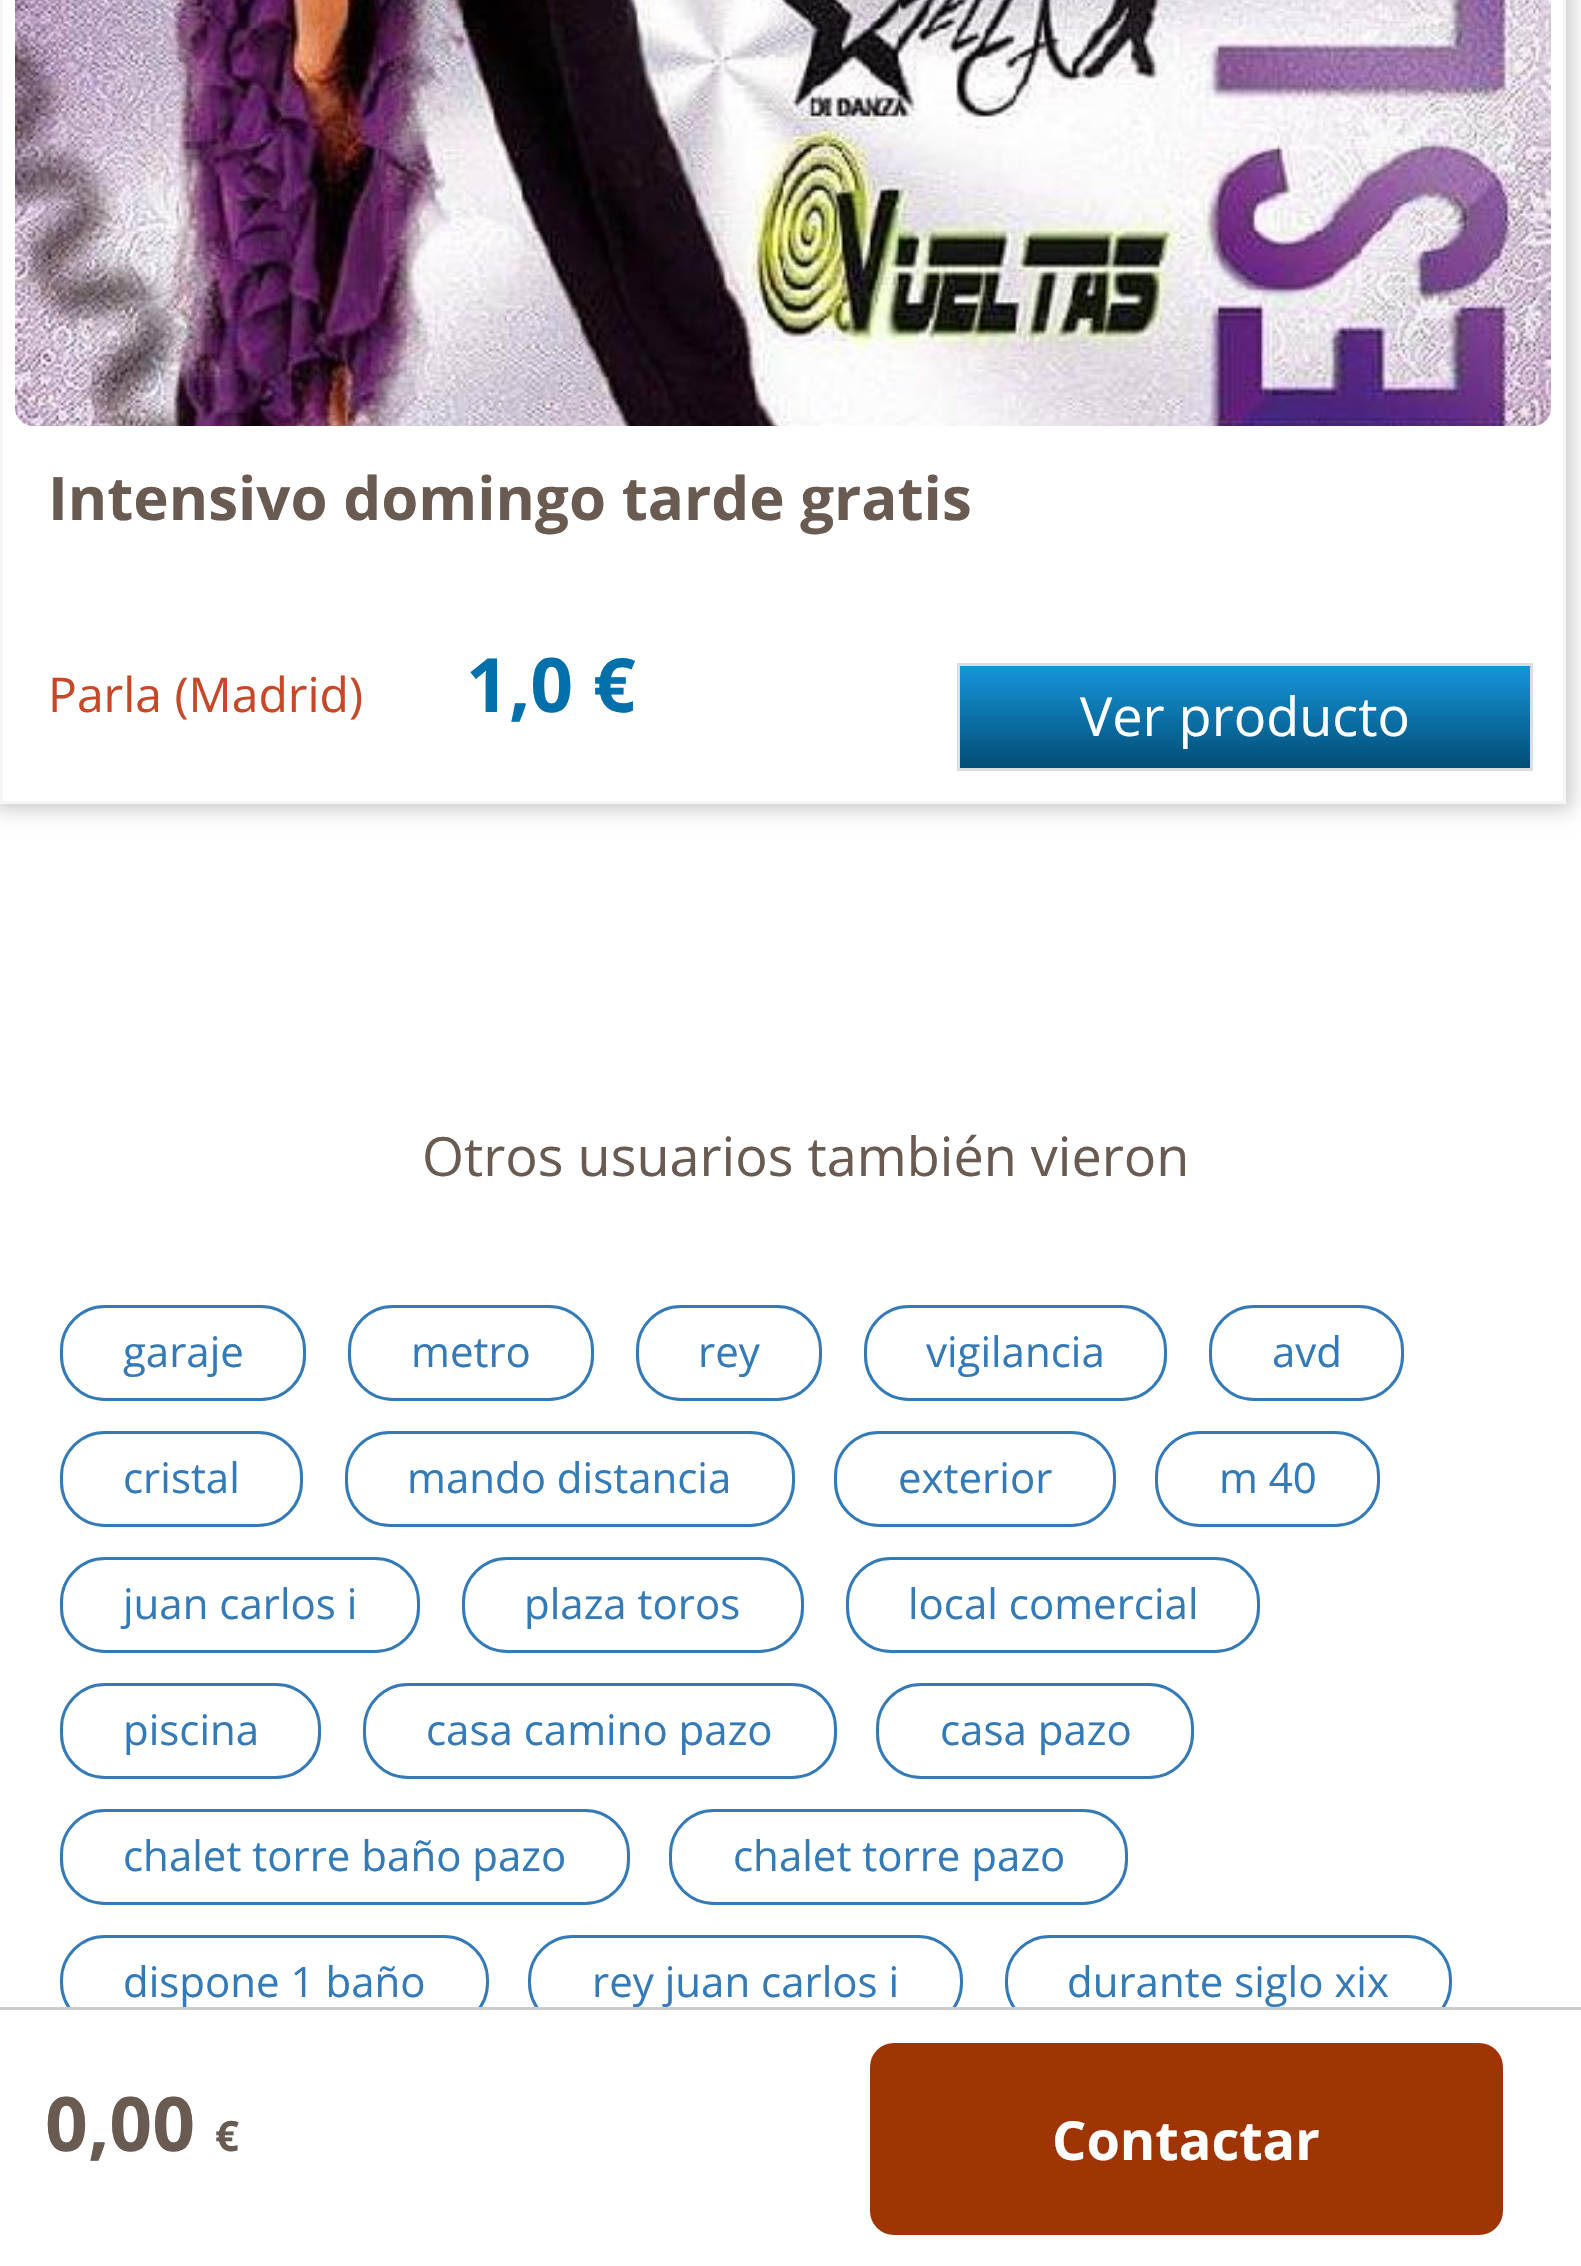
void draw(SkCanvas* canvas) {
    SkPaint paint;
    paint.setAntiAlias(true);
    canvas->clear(0xFFFFFFFF);
    canvas->save();
    canvas->clipPath(SkPathBuilder(SkPathFillType::kEvenOdd).moveTo(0, 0).lineTo(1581, 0).lineTo(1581, 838).lineTo(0, 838).close().moveTo(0, -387).lineTo(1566, -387).lineTo(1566, 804).lineTo(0, 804).close().detach(), true);
    paint.setColor(0xFFCCCCCC);
    paint.setMaskFilter(SkMaskFilter::MakeBlur(kNormal_SkBlurStyle, 9));
    canvas->drawRect(SkRect::MakeXYWH(-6, -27, 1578, 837), paint);
    paint.setMaskFilter(nullptr);
    canvas->restore();
    paint.setStyle(SkPaint::kStroke_Style);
    paint.setStrokeWidth(3);
    paint.setColor(0xFFF5F5F5);
    canvas->drawRect(SkRect::MakeXYWH(1.5f, -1.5f, 1563, 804), paint);
    canvas->drawImageRect(SkImages::DeferredFromEncodedData(SkData::MakeFromFileName("img1.png")), SkRect::MakeXYWH(15, 0, 1536, 426), SkSamplingOptions());
    SkFont font1(fontMgr->matchFamilyStyle("Open Sans", SkFontStyle::Bold()), 60);
    font1.setSubpixel(true);
    paint.setStyle(SkPaint::kFill_Style);
    paint.setColor(0xFF695B52);
    canvas->drawString("Intensivo domingo tarde gratis", 48, 520, font1, paint);
    SkFont font2(fontMgr->matchFamilyStyle("Open Sans", SkFontStyle::Normal()), 48);
    font2.setSubpixel(true);
    paint.setColor(0xFFC64826);
    canvas->drawString("Parla (Madrid)", 48, 712, font2, paint);
    SkFont font3(fontMgr->matchFamilyStyle("Open Sans", SkFontStyle::Bold()), 75);
    font3.setSubpixel(true);
    paint.setColor(0xFF0270AA);
    canvas->drawString("1,0 €", 466, 712, font3, paint);
    {
        const SkColor colors[] = {0xFF1696DB, 0xFF024D75};
        const float stops[] = {0, 1};
        const SkPoint ends[] = {{1245, 666}, {1245, 768}};
        paint.setShader(SkGradientShader::MakeLinear(ends, colors, stops, 2, SkTileMode::kClamp));
        paint.setAlpha(255);
    }
    canvas->drawRect(SkRect::MakeXYWH(960, 666, 570, 102), paint);
    paint.setStyle(SkPaint::kStroke_Style);
    paint.setShader(nullptr);
    paint.setColor(0xFFDDDDDD);
    canvas->drawRect(SkRect::MakeXYWH(958.5f, 664.5f, 573, 105), paint);
    SkFont font4(fontMgr->matchFamilyStyle("Open Sans", SkFontStyle::Normal()), 54);
    font4.setSubpixel(true);
    paint.setStyle(SkPaint::kFill_Style);
    paint.setColor(0xFFFFFFFF);
    canvas->drawString("Ver producto", 1080, 736, font4, paint);
    paint.setColor(0xFF695B52);
    canvas->drawString("Otros usuarios también vieron", 422, 1176, font4, paint);
    paint.setStyle(SkPaint::kStroke_Style);
    paint.setColor(0xFF337AB7);
    canvas->drawRoundRect(SkRect::MakeXYWH(61.5f, 1306.5f, 243, 93), 43.5f, 43.5f, paint);
    SkFont font5(fontMgr->matchFamilyStyle("Open Sans", SkFontStyle::Normal()), 42);
    font5.setSubpixel(true);
    paint.setStyle(SkPaint::kFill_Style);
    canvas->drawString("garaje", 123, 1367, font5, paint);
    paint.setStyle(SkPaint::kStroke_Style);
    canvas->drawRoundRect(SkRect::MakeXYWH(349.5f, 1306.5f, 243, 93), 43.5f, 43.5f, paint);
    paint.setStyle(SkPaint::kFill_Style);
    canvas->drawString("metro", 411, 1367, font5, paint);
    paint.setStyle(SkPaint::kStroke_Style);
    canvas->drawRoundRect(SkRect::MakeXYWH(637.5f, 1306.5f, 183, 93), 43.5f, 43.5f, paint);
    paint.setStyle(SkPaint::kFill_Style);
    canvas->drawString("rey", 698, 1367, font5, paint);
    paint.setStyle(SkPaint::kStroke_Style);
    canvas->drawRoundRect(SkRect::MakeXYWH(865.5f, 1306.5f, 300, 93), 43.5f, 43.5f, paint);
    paint.setStyle(SkPaint::kFill_Style);
    canvas->drawString("vigilancia", 926, 1367, font5, paint);
    paint.setStyle(SkPaint::kStroke_Style);
    canvas->drawRoundRect(SkRect::MakeXYWH(1210.5f, 1306.5f, 192, 93), 43.5f, 43.5f, paint);
    paint.setStyle(SkPaint::kFill_Style);
    canvas->drawString("avd", 1272, 1367, font5, paint);
    paint.setStyle(SkPaint::kStroke_Style);
    canvas->drawRoundRect(SkRect::MakeXYWH(61.5f, 1432.5f, 240, 93), 43.5f, 43.5f, paint);
    paint.setStyle(SkPaint::kFill_Style);
    canvas->drawString("cristal", 123, 1493, font5, paint);
    paint.setStyle(SkPaint::kStroke_Style);
    canvas->drawRoundRect(SkRect::MakeXYWH(346.5f, 1432.5f, 447, 93), 43.5f, 43.5f, paint);
    paint.setStyle(SkPaint::kFill_Style);
    canvas->drawString("mando distancia", 407, 1493, font5, paint);
    paint.setStyle(SkPaint::kStroke_Style);
    canvas->drawRoundRect(SkRect::MakeXYWH(835.5f, 1432.5f, 279, 93), 43.5f, 43.5f, paint);
    paint.setStyle(SkPaint::kFill_Style);
    canvas->drawString("exterior", 898, 1493, font5, paint);
    paint.setStyle(SkPaint::kStroke_Style);
    canvas->drawRoundRect(SkRect::MakeXYWH(1156.5f, 1432.5f, 222, 93), 43.5f, 43.5f, paint);
    paint.setStyle(SkPaint::kFill_Style);
    canvas->drawString("m 40", 1219, 1493, font5, paint);
    paint.setStyle(SkPaint::kStroke_Style);
    canvas->drawRoundRect(SkRect::MakeXYWH(61.5f, 1558.5f, 357, 93), 43.5f, 43.5f, paint);
    paint.setStyle(SkPaint::kFill_Style);
    canvas->drawString("juan carlos i", 123, 1619, font5, paint);
    paint.setStyle(SkPaint::kStroke_Style);
    canvas->drawRoundRect(SkRect::MakeXYWH(463.5f, 1558.5f, 339, 93), 43.5f, 43.5f, paint);
    paint.setStyle(SkPaint::kFill_Style);
    canvas->drawString("plaza toros", 524, 1619, font5, paint);
    paint.setStyle(SkPaint::kStroke_Style);
    canvas->drawRoundRect(SkRect::MakeXYWH(847.5f, 1558.5f, 411, 93), 43.5f, 43.5f, paint);
    paint.setStyle(SkPaint::kFill_Style);
    canvas->drawString("local comercial", 908, 1619, font5, paint);
    paint.setStyle(SkPaint::kStroke_Style);
    canvas->drawRoundRect(SkRect::MakeXYWH(61.5f, 1684.5f, 258, 93), 43.5f, 43.5f, paint);
    paint.setStyle(SkPaint::kFill_Style);
    canvas->drawString("piscina", 123, 1745, font5, paint);
    paint.setStyle(SkPaint::kStroke_Style);
    canvas->drawRoundRect(SkRect::MakeXYWH(364.5f, 1684.5f, 471, 93), 43.5f, 43.5f, paint);
    paint.setStyle(SkPaint::kFill_Style);
    canvas->drawString("casa camino pazo", 426, 1745, font5, paint);
    paint.setStyle(SkPaint::kStroke_Style);
    canvas->drawRoundRect(SkRect::MakeXYWH(877.5f, 1684.5f, 315, 93), 43.5f, 43.5f, paint);
    paint.setStyle(SkPaint::kFill_Style);
    canvas->drawString("casa pazo", 940, 1745, font5, paint);
    paint.setStyle(SkPaint::kStroke_Style);
    canvas->drawRoundRect(SkRect::MakeXYWH(61.5f, 1810.5f, 567, 93), 43.5f, 43.5f, paint);
    paint.setStyle(SkPaint::kFill_Style);
    canvas->drawString("chalet torre baño pazo", 123, 1871, font5, paint);
    paint.setStyle(SkPaint::kStroke_Style);
    canvas->drawRoundRect(SkRect::MakeXYWH(670.5f, 1810.5f, 456, 93), 43.5f, 43.5f, paint);
    paint.setStyle(SkPaint::kFill_Style);
    canvas->drawString("chalet torre pazo", 733, 1871, font5, paint);
    paint.setStyle(SkPaint::kStroke_Style);
    canvas->drawRoundRect(SkRect::MakeXYWH(61.5f, 1936.5f, 426, 90), 43.5f, 43.5f, paint);
    paint.setStyle(SkPaint::kFill_Style);
    canvas->drawString("dispone 1 baño", 123, 1997, font5, paint);
    paint.setStyle(SkPaint::kStroke_Style);
    canvas->drawRoundRect(SkRect::MakeXYWH(529.5f, 1936.5f, 432, 90), 43.5f, 43.5f, paint);
    paint.setStyle(SkPaint::kFill_Style);
    canvas->drawString("rey juan carlos i", 592, 1997, font5, paint);
    paint.setStyle(SkPaint::kStroke_Style);
    canvas->drawRoundRect(SkRect::MakeXYWH(1006.5f, 1936.5f, 444, 90), 43.5f, 43.5f, paint);
    paint.setStyle(SkPaint::kFill_Style);
    canvas->drawString("durante siglo xix", 1067, 1997, font5, paint);
    paint.setColor(0xFFFFFFFF);
    canvas->drawRect(SkRect::MakeXYWH(69, 2010, 1374, 18), paint);
    paint.setColor(0xFFCCCCCC);
    canvas->drawRect(SkRect::MakeXYWH(0, 2007, 1581, 3), paint);
    paint.setColor(0xFF695B52);
    canvas->drawString("0,00", 45, 2151, font3, paint);
    SkFont font6(fontMgr->matchFamilyStyle("Open Sans", SkFontStyle::Bold()), 42);
    font6.setSubpixel(true);
    canvas->drawString("€", 215, 2151, font6, paint);
    paint.setColor(0xFF9F3404);
    canvas->drawRoundRect(SkRect::MakeXYWH(870, 2043, 633, 192), 24, 24, paint);
    SkFont font7(fontMgr->matchFamilyStyle("Open Sans", SkFontStyle::Bold()), 54);
    font7.setSubpixel(true);
    paint.setColor(0xFFFFFFFF);
    canvas->drawString("Contactar", 1052, 2160, font7, paint);
}
